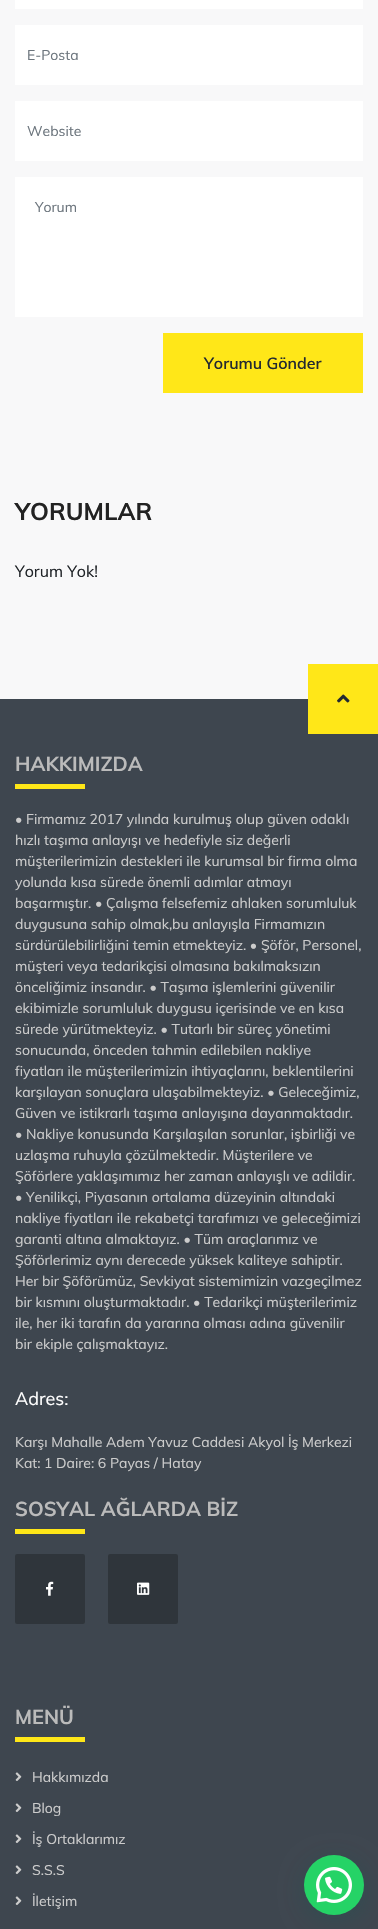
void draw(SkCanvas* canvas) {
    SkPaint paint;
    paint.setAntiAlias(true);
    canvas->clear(0xFFF8F8F9);
    paint.setColor(0xFFFFFFFF);
    canvas->drawRect(SkRect::MakeXYWH(15, 0, 348, 9), paint);
    canvas->drawRect(SkRect::MakeXYWH(15, 25, 348, 60), paint);
    SkFont font1(fontMgr->matchFamilyStyle("Muli", SkFontStyle::Normal()), 14);
    font1.setSubpixel(true);
    paint.setColor(0xFF6C757D);
    canvas->drawString("E-Posta", 27, 60, font1, paint);
    paint.setColor(0xFFFFFFFF);
    canvas->drawRect(SkRect::MakeXYWH(15, 101, 348, 60), paint);
    paint.setColor(0xFF6C757D);
    canvas->drawString("Website", 27, 136, font1, paint);
    paint.setColor(0xFFFFFFFF);
    canvas->drawRect(SkRect::MakeXYWH(15, 177, 348, 140), paint);
    paint.setColor(0xFF6C757D);
    canvas->drawString("Yorum", 35, 212, font1, paint);
    paint.setColor(0xFFFFE718);
    canvas->drawRect(SkRect::MakeXYWH(163, 333, 200, 60), paint);
    SkFont font2(fontMgr->matchFamilyStyle("Muli", SkFontStyle(600, SkFontStyle::kNormal_Width, SkFontStyle::kUpright_Slant)), 16);
    font2.setSubpixel(true);
    paint.setColor(0xFF222931);
    canvas->drawString("Yorumu Gönder", 204, 369, font2, paint);
    SkFont font3(fontMgr->matchFamilyStyle("Muli", SkFontStyle::Bold()), 24);
    font3.setSubpixel(true);
    paint.setColor(0xFF222222);
    canvas->drawString("YORUMLAR", 15, 520, font3, paint);
    SkFont font4(fontMgr->matchFamilyStyle("Muli", SkFontStyle::Normal()), 16);
    font4.setSubpixel(true);
    paint.setColor(0xFF212529);
    canvas->drawString("Yorum Yok!", 15, 577, font4, paint);
    paint.setColor(0xFF3E464F);
    canvas->drawRect(SkRect::MakeXYWH(0, 699, 378, 1230), paint);
    paint.setColor(0xFFFFE718);
    canvas->drawRect(SkRect::MakeXYWH(308, 664, 70, 70), paint);
    canvas->drawImageRect(SkImages::DeferredFromEncodedData(SkData::MakeFromFileName("img1.png")), SkRect::MakeXYWH(337, 694, 13, 9), SkSamplingOptions());
    SkFont font5(fontMgr->matchFamilyStyle("Muli", SkFontStyle::Bold()), 20);
    font5.setSubpixel(true);
    paint.setColor(0xFFBBBBBB);
    canvas->drawString("HAKKIMIZDA", 15, 771, font5, paint);
    paint.setColor(0xFFFFE718);
    canvas->drawRect(SkRect::MakeXYWH(15, 784, 70, 5), paint);
    paint.setColor(0xFFCCCCCC);
    canvas->drawString("• Firmamız 2017 yılında kurulmuş olup güven odaklı", 15, 824, font1, paint);
    canvas->drawString("hızlı taşıma anlayışı ve hedefiyle siz değerli", 15, 845, font1, paint);
    canvas->drawString("müşterilerimizin destekleri ile kurumsal bir firma olma", 15, 866, font1, paint);
    canvas->drawString("yolunda kısa sürede önemli adımlar atmayı", 15, 887, font1, paint);
    canvas->drawString("başarmıştır. • Çalışma felsefemiz ahlaken sorumluluk", 15, 908, font1, paint);
    canvas->drawString("duygusuna sahip olmak,bu anlayışla Firmamızın", 15, 929, font1, paint);
    canvas->drawString("sürdürülebilirliğini temin etmekteyiz. • Şöför, Personel,", 15, 950, font1, paint);
    canvas->drawString("müşteri veya tedarikçisi olmasına bakılmaksızın", 15, 971, font1, paint);
    canvas->drawString("önceliğimiz insandır. • Taşıma işlemlerini güvenilir", 15, 992, font1, paint);
    canvas->drawString("ekibimizle sorumluluk duygusu içerisinde ve en kısa", 15, 1013, font1, paint);
    canvas->drawString("sürede yürütmekteyiz. • Tutarlı bir süreç yönetimi", 15, 1034, font1, paint);
    canvas->drawString("sonucunda, önceden tahmin edilebilen nakliye", 15, 1055, font1, paint);
    canvas->drawString("fiyatları ile müşterilerimizin ihtiyaçlarını, beklentilerini", 15, 1076, font1, paint);
    canvas->drawString("karşılayan sonuçlara ulaşabilmekteyiz. • Geleceğimiz,", 15, 1097, font1, paint);
    canvas->drawString("Güven ve istikrarlı taşıma anlayışına dayanmaktadır.", 15, 1118, font1, paint);
    canvas->drawString("• Nakliye konusunda Karşılaşılan sorunlar, işbirliği ve", 15, 1139, font1, paint);
    canvas->drawString("uzlaşma ruhuyla çözülmektedir. Müşterilere ve", 15, 1160, font1, paint);
    canvas->drawString("Şöförlere yaklaşımımız her zaman anlayışlı ve adildir.", 15, 1181, font1, paint);
    canvas->drawString("• Yenilikçi, Piyasanın ortalama düzeyinin altındaki", 15, 1202, font1, paint);
    canvas->drawString("nakliye fiyatları ile rekabetçi tarafımızı ve geleceğimizi", 15, 1223, font1, paint);
    canvas->drawString("garanti altına almaktayız. • Tüm araçlarımız ve", 15, 1244, font1, paint);
    canvas->drawString("Şöförlerimiz aynı derecede yüksek kaliteye sahiptir.", 15, 1265, font1, paint);
    canvas->drawString("Her bir Şöförümüz, Sevkiyat sistemimizin vazgeçilmez", 15, 1286, font1, paint);
    canvas->drawString("bir kısmını oluşturmaktadır. • Tedarikçi müşterilerimiz", 15, 1307, font1, paint);
    canvas->drawString("ile, her iki tarafın da yararına olması adına güvenilir", 15, 1328, font1, paint);
    canvas->drawString("bir ekiple çalışmaktayız.", 15, 1349, font1, paint);
    SkFont font6(fontMgr->matchFamilyStyle("Muli", SkFontStyle::Normal()), 18);
    font6.setSubpixel(true);
    paint.setColor(0xFFFFFFFF);
    canvas->drawString("Adres:", 15, 1405, font6, paint);
    paint.setColor(0xFFCCCCCC);
    canvas->drawString("Karşı Mahalle Adem Yavuz Caddesi Akyol İş Merkezi", 15, 1447, font1, paint);
    canvas->drawString("Kat: 1 Daire: 6 Payas / Hatay", 15, 1468, font1, paint);
    paint.setColor(0xFFBBBBBB);
    canvas->drawString("SOSYAL AĞLARDA BİZ", 15, 1516, font5, paint);
    paint.setColor(0xFFFFE718);
    canvas->drawRect(SkRect::MakeXYWH(15, 1529, 70, 5), paint);
    paint.setColor(0xFF2F353B);
    canvas->drawRoundRect(SkRect::MakeXYWH(15, 1554, 70, 70), 2, 2, paint);
    canvas->drawImageRect(SkImages::DeferredFromEncodedData(SkData::MakeFromFileName("img2.png")), SkRect::MakeXYWH(46, 1581, 8, 15), SkSamplingOptions());
    canvas->drawRoundRect(SkRect::MakeXYWH(108, 1554, 70, 70), 2, 2, paint);
    canvas->drawImageRect(SkImages::DeferredFromEncodedData(SkData::MakeFromFileName("img3.png")), SkRect::MakeXYWH(137, 1582, 13, 13), SkSamplingOptions());
    paint.setColor(0xFFBBBBBB);
    canvas->drawString("MENÜ", 15, 1724, font5, paint);
    paint.setColor(0xFFFFE718);
    canvas->drawRect(SkRect::MakeXYWH(15, 1737, 70, 5), paint);
    canvas->drawImageRect(SkImages::DeferredFromEncodedData(SkData::MakeFromFileName("img4.png")), SkRect::MakeXYWH(15, 1772, 7, 9), SkSamplingOptions());
    paint.setColor(0xFFCCCCCC);
    canvas->drawString("Hakkımızda", 32, 1782, font1, paint);
    canvas->drawImageRect(SkImages::DeferredFromEncodedData(SkData::MakeFromFileName("img4.png")), SkRect::MakeXYWH(15, 1803, 7, 9), SkSamplingOptions());
    canvas->drawString("Blog", 32, 1813, font1, paint);
    canvas->drawImageRect(SkImages::DeferredFromEncodedData(SkData::MakeFromFileName("img4.png")), SkRect::MakeXYWH(15, 1834, 7, 9), SkSamplingOptions());
    canvas->drawString("İş Ortaklarımız", 32, 1844, font1, paint);
    canvas->drawImageRect(SkImages::DeferredFromEncodedData(SkData::MakeFromFileName("img4.png")), SkRect::MakeXYWH(15, 1865, 7, 9), SkSamplingOptions());
    canvas->drawString("S.S.S", 32, 1875, font1, paint);
    canvas->drawImageRect(SkImages::DeferredFromEncodedData(SkData::MakeFromFileName("img4.png")), SkRect::MakeXYWH(15, 1896, 7, 9), SkSamplingOptions());
    canvas->drawString("İletişim", 32, 1906, font1, paint);
    paint.setColor(0x3D075E54);
    paint.setMaskFilter(SkMaskFilter::MakeBlur(kNormal_SkBlurStyle, 12));
    canvas->drawRoundRect(SkRect::MakeXYWH(305, 1861, 60, 60), 30, 30, paint);
    paint.setMaskFilter(nullptr);
    paint.setColor(0xFF25D366);
    canvas->drawCircle(334, 1885, 30, paint);
    canvas->drawImageRect(SkImages::DeferredFromEncodedData(SkData::MakeFromFileName("img5.png")), SkRect::MakeXYWH(316, 1867, 36, 36), SkSamplingOptions());
}
